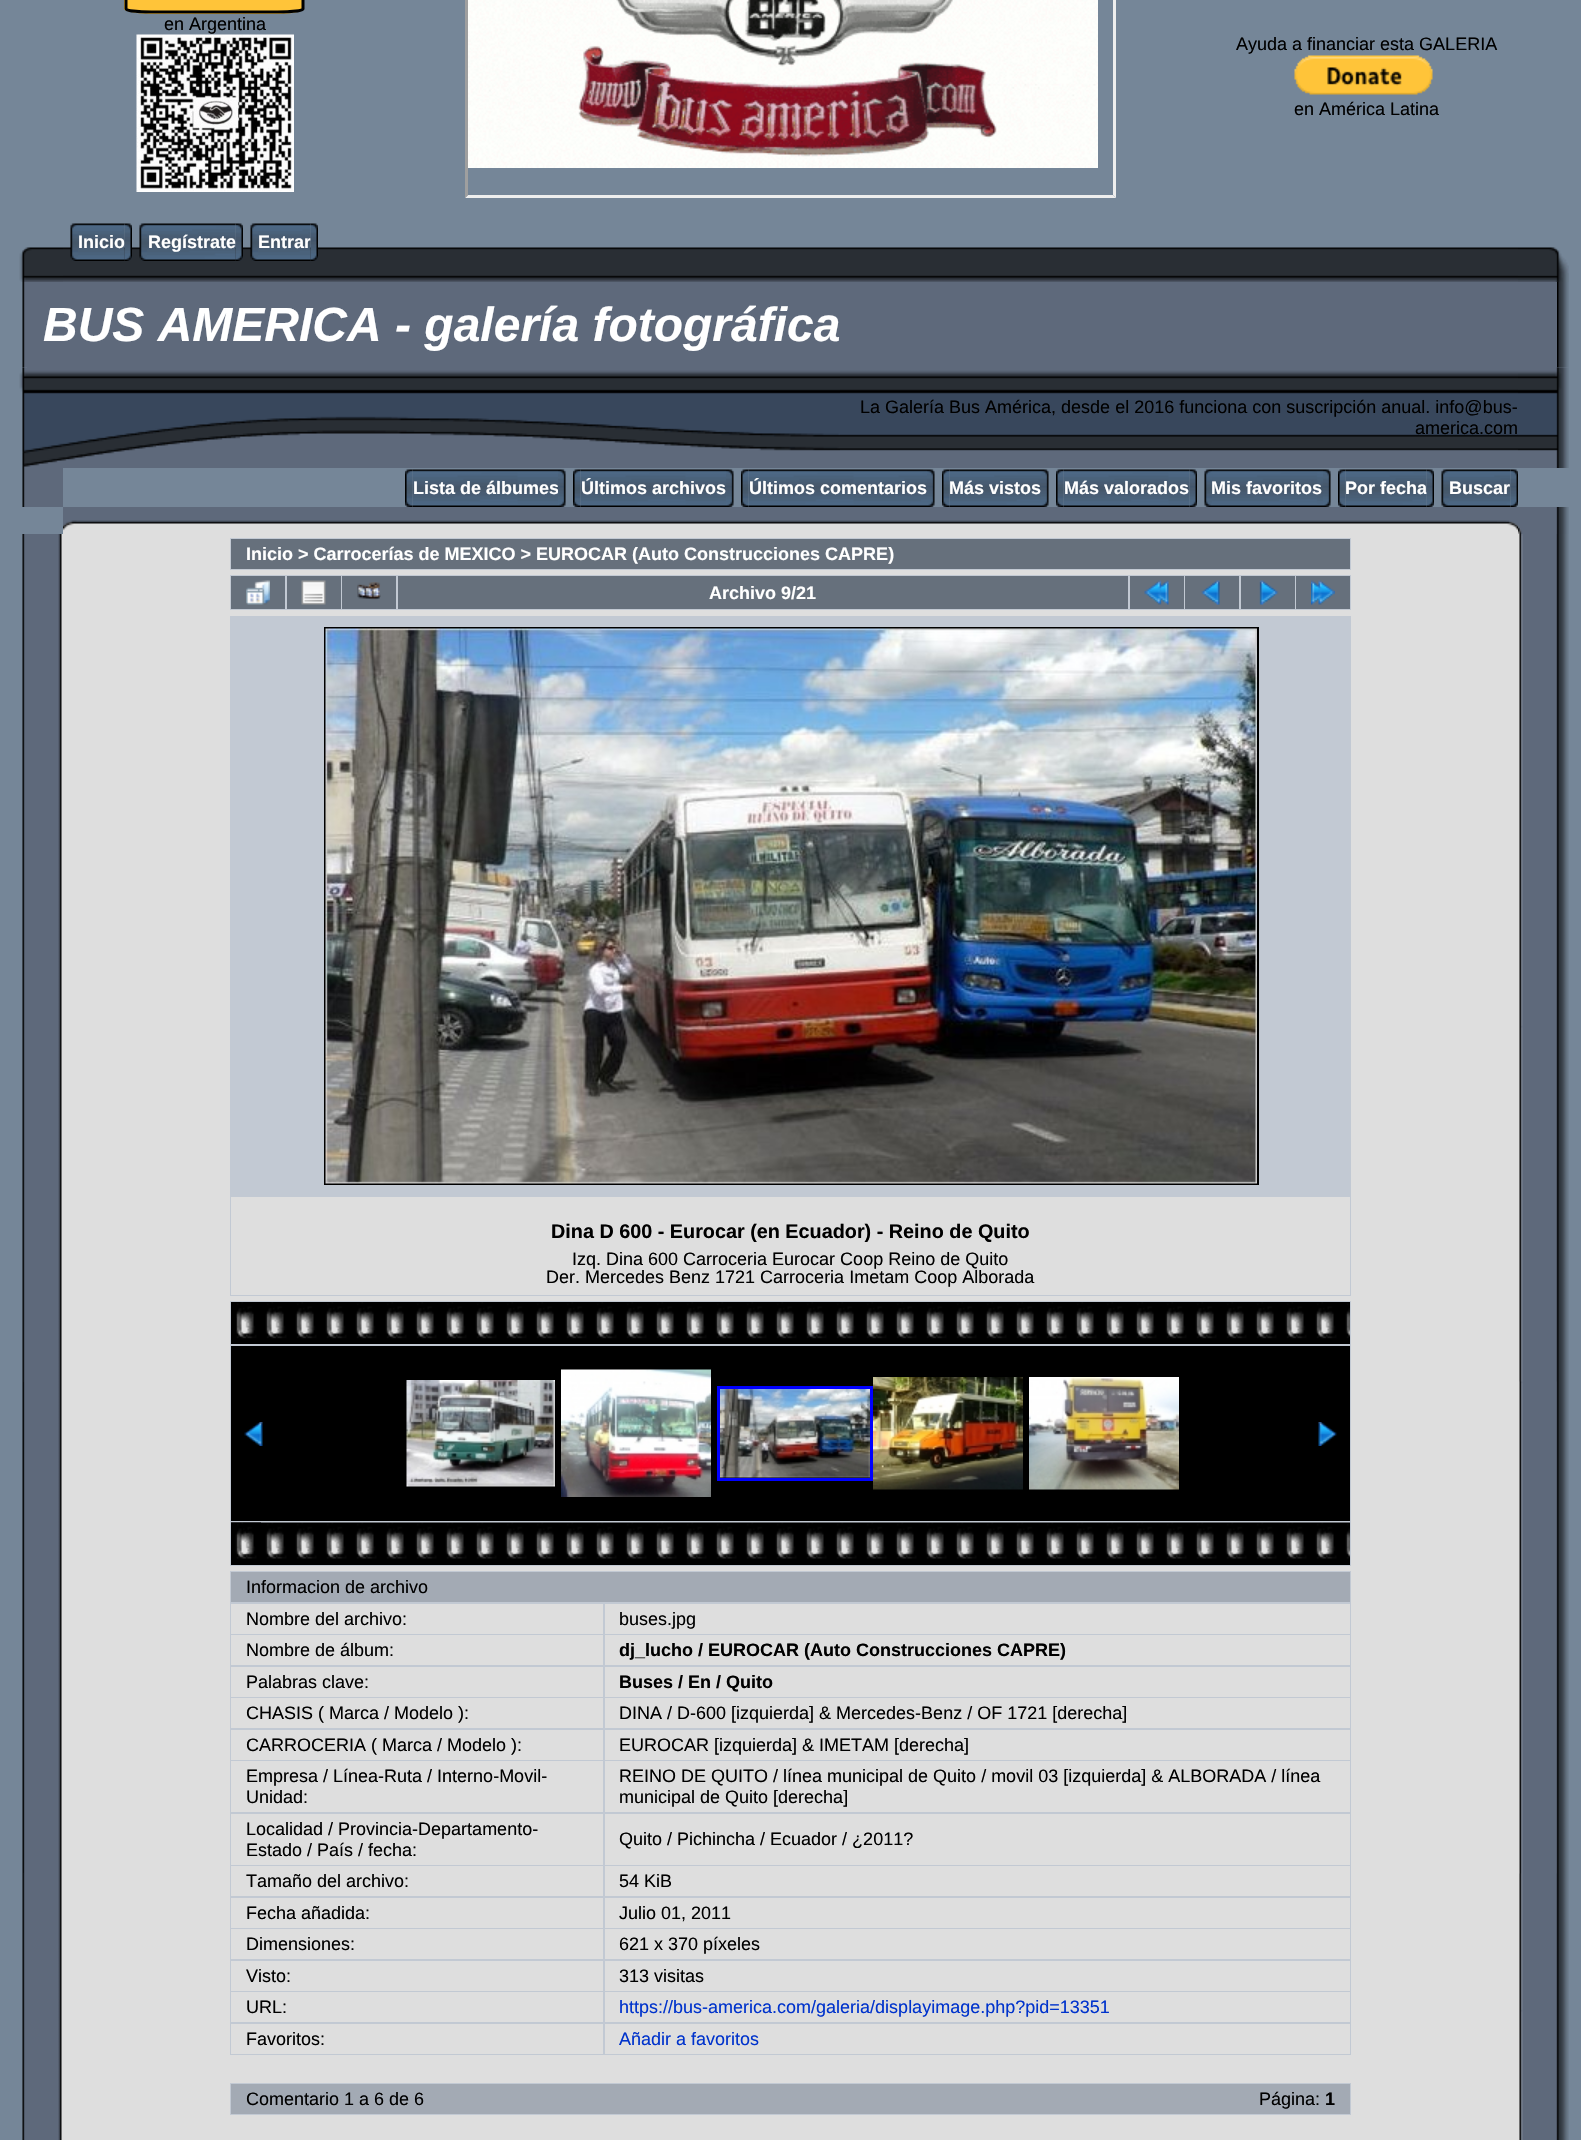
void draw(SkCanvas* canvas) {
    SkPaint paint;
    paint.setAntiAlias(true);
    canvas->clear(0xFF758698);
    paint.setColor(0xFFFFC439);
    canvas->drawPath(SkPathBuilder().moveTo(152, -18).lineTo(278, -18).cubicTo(292, -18, 304, -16, 304, -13).lineTo(304, 9).cubicTo(304, 11, 292, 14, 278, 14).lineTo(152, 14).cubicTo(137, 14, 124, 11, 124, 9).lineTo(124, -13).cubicTo(124, -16, 137, -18, 152, -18).close().detach(), paint);
    paint.setStyle(SkPaint::kStroke_Style);
    paint.setStrokeWidth(3);
    paint.setColor(0xFF000000);
    canvas->drawPath(SkPathBuilder().moveTo(151.5f, -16.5f).lineTo(277.5f, -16.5f).cubicTo(291.5f, -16.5f, 303, -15, 303, -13.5f).lineTo(303, 9).cubicTo(303, 10.5f, 291.5f, 12, 277.5f, 12).lineTo(151.5f, 12).cubicTo(137.5f, 12, 126, 10.5f, 126, 9).lineTo(126, -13.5f).cubicTo(126, -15, 137.5f, -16.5f, 151.5f, -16.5f).close().detach(), paint);
    SkFont font1(fontMgr->matchFamilyStyle("Liberation Sans", SkFontStyle::Normal()), 18);
    font1.setSubpixel(true);
    paint.setStyle(SkPaint::kFill_Style);
    canvas->drawString("en Argentina", 164, 30, font1, paint);
    canvas->drawImageRect(SkImages::DeferredFromEncodedData(SkData::MakeFromFileName("img1.png")), SkRect::MakeXYWH(136, 34, 158, 158), SkSamplingOptions());
    paint.setColor(0xFFEEEEEE);
    canvas->drawPath(SkPathBuilder().moveTo(1116, -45).lineTo(1116, 198).lineTo(1113, 195).lineTo(1113, -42).close().detach(), paint);
    canvas->drawPath(SkPathBuilder().moveTo(1116, 198).lineTo(465, 198).lineTo(468, 195).lineTo(1113, 195).close().detach(), paint);
    paint.setColor(0xFF9F9F9F);
    canvas->drawPath(SkPathBuilder().moveTo(465, 198).lineTo(465, -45).lineTo(468, -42).lineTo(468, 195).close().detach(), paint);
    canvas->drawImageRect(SkImages::DeferredFromEncodedData(SkData::MakeFromFileName("img2.png")), SkRect::MakeXYWH(468, 0, 630, 168), SkSamplingOptions());
    paint.setColor(0xFF000000);
    canvas->drawString("Ayuda a financiar esta GALERIA", 1236, 50, font1, paint);
    canvas->drawImageRect(SkImages::DeferredFromEncodedData(SkData::MakeFromFileName("img3.png")), SkRect::MakeXYWH(1294, 55, 139, 40), SkSamplingOptions());
    canvas->drawString("en América Latina", 1294, 115, font1, paint);
    canvas->drawImageRect(SkImages::DeferredFromEncodedData(SkData::MakeFromFileName("img4.png")), SkRect::MakeXYWH(63, 247, 1455, 35), SkSamplingOptions());
    canvas->drawImageRect(SkImages::DeferredFromEncodedData(SkData::MakeFromFileName("img5.png")), SkRect::MakeXYWH(70, 223, 8, 38), SkSamplingOptions());
    canvas->drawImageRect(SkImages::DeferredFromEncodedData(SkData::MakeFromFileName("img6.png")), SkRect::MakeXYWH(78, 223, 47, 38), SkSamplingOptions());
    SkFont font2(fontMgr->matchFamilyStyle("Liberation Sans", SkFontStyle::Bold()), 18);
    font2.setSubpixel(true);
    paint.setColor(0xFFFFFFFF);
    canvas->drawString("Inicio", 78, 248, font2, paint);
    canvas->drawImageRect(SkImages::DeferredFromEncodedData(SkData::MakeFromFileName("img7.png")), SkRect::MakeXYWH(124, 223, 8, 38), SkSamplingOptions());
    canvas->drawImageRect(SkImages::DeferredFromEncodedData(SkData::MakeFromFileName("img5.png")), SkRect::MakeXYWH(139, 223, 8, 38), SkSamplingOptions());
    canvas->drawImageRect(SkImages::DeferredFromEncodedData(SkData::MakeFromFileName("img8.png")), SkRect::MakeXYWH(147, 223, 89, 38), SkSamplingOptions());
    canvas->drawString("Regístrate", 148, 248, font2, paint);
    canvas->drawImageRect(SkImages::DeferredFromEncodedData(SkData::MakeFromFileName("img9.png")), SkRect::MakeXYWH(235, 223, 8, 38), SkSamplingOptions());
    canvas->drawImageRect(SkImages::DeferredFromEncodedData(SkData::MakeFromFileName("img5.png")), SkRect::MakeXYWH(250, 223, 8, 38), SkSamplingOptions());
    canvas->drawImageRect(SkImages::DeferredFromEncodedData(SkData::MakeFromFileName("img10.png")), SkRect::MakeXYWH(258, 223, 53, 38), SkSamplingOptions());
    canvas->drawString("Entrar", 258, 248, font2, paint);
    canvas->drawImageRect(SkImages::DeferredFromEncodedData(SkData::MakeFromFileName("img11.png")), SkRect::MakeXYWH(310, 223, 8, 38), SkSamplingOptions());
    canvas->drawImageRect(SkImages::DeferredFromEncodedData(SkData::MakeFromFileName("img12.png")), SkRect::MakeXYWH(19, 247, 44, 35), SkSamplingOptions());
    canvas->drawImageRect(SkImages::DeferredFromEncodedData(SkData::MakeFromFileName("img13.png")), SkRect::MakeXYWH(1518, 247, 51, 35), SkSamplingOptions());
    canvas->drawImageRect(SkImages::DeferredFromEncodedData(SkData::MakeFromFileName("img14.png")), SkRect::MakeXYWH(22, 282, 5, 86), SkSamplingOptions());
    paint.setColor(0xFF5E697B);
    canvas->drawRect(SkRect::MakeXYWH(27, 282, 1530, 86), paint);
    SkFont font3(fontMgr->matchFamilyStyle("Liberation Sans", SkFontStyle::BoldItalic()), 48);
    font3.setSubpixel(true);
    paint.setColor(0xFFFFFFFF);
    canvas->drawString("BUS AMERICA - galería fotográfica", 43, 341, font3, paint);
    canvas->drawImageRect(SkImages::DeferredFromEncodedData(SkData::MakeFromFileName("img15.png")), SkRect::MakeXYWH(1557, 282, 12, 86), SkSamplingOptions());
    canvas->drawImageRect(SkImages::DeferredFromEncodedData(SkData::MakeFromFileName("img16.png")), SkRect::MakeXYWH(19, 367, 821, 101), SkSamplingOptions());
    canvas->drawImageRect(SkImages::DeferredFromEncodedData(SkData::MakeFromFileName("img17.png")), SkRect::MakeXYWH(840, 368, 678, 100), SkSamplingOptions());
    paint.setColor(0xFF000000);
    canvas->drawString("La Galería Bus América, desde el 2016 funciona con suscripción anual. info@bus-", 860, 413, font1, paint);
    canvas->drawString("america.com", 1415, 434, font1, paint);
    canvas->drawImageRect(SkImages::DeferredFromEncodedData(SkData::MakeFromFileName("img18.png")), SkRect::MakeXYWH(1518, 367, 51, 101), SkSamplingOptions());
    canvas->drawImageRect(SkImages::DeferredFromEncodedData(SkData::MakeFromFileName("img19.png")), SkRect::MakeXYWH(22, 468, 41, 39), SkSamplingOptions());
    canvas->drawImageRect(SkImages::DeferredFromEncodedData(SkData::MakeFromFileName("img21.png")), SkRect::MakeXYWH(412, 469, 146, 38), SkSamplingOptions());
    canvas->drawImageRect(SkImages::DeferredFromEncodedData(SkData::MakeFromFileName("img20.png")), SkRect::MakeXYWH(405, 469, 8, 38), SkSamplingOptions());
    paint.setColor(0xFFFFFFFF);
    canvas->drawString("Lista de álbumes", 413, 494, font2, paint);
    canvas->drawImageRect(SkImages::DeferredFromEncodedData(SkData::MakeFromFileName("img22.png")), SkRect::MakeXYWH(558, 469, 8, 38), SkSamplingOptions());
    canvas->drawImageRect(SkImages::DeferredFromEncodedData(SkData::MakeFromFileName("img23.png")), SkRect::MakeXYWH(580, 469, 146, 38), SkSamplingOptions());
    canvas->drawImageRect(SkImages::DeferredFromEncodedData(SkData::MakeFromFileName("img20.png")), SkRect::MakeXYWH(573, 469, 8, 38), SkSamplingOptions());
    canvas->drawString("Últimos archivos", 581, 494, font2, paint);
    canvas->drawImageRect(SkImages::DeferredFromEncodedData(SkData::MakeFromFileName("img22.png")), SkRect::MakeXYWH(726, 469, 8, 38), SkSamplingOptions());
    canvas->drawImageRect(SkImages::DeferredFromEncodedData(SkData::MakeFromFileName("img24.png")), SkRect::MakeXYWH(748, 469, 179, 38), SkSamplingOptions());
    canvas->drawImageRect(SkImages::DeferredFromEncodedData(SkData::MakeFromFileName("img20.png")), SkRect::MakeXYWH(741, 469, 8, 38), SkSamplingOptions());
    canvas->drawString("Últimos comentarios", 749, 494, font2, paint);
    canvas->drawImageRect(SkImages::DeferredFromEncodedData(SkData::MakeFromFileName("img25.png")), SkRect::MakeXYWH(927, 469, 8, 38), SkSamplingOptions());
    canvas->drawImageRect(SkImages::DeferredFromEncodedData(SkData::MakeFromFileName("img27.png")), SkRect::MakeXYWH(949, 469, 92, 38), SkSamplingOptions());
    canvas->drawImageRect(SkImages::DeferredFromEncodedData(SkData::MakeFromFileName("img26.png")), SkRect::MakeXYWH(942, 469, 8, 38), SkSamplingOptions());
    canvas->drawString("Más vistos", 949, 494, font2, paint);
    canvas->drawImageRect(SkImages::DeferredFromEncodedData(SkData::MakeFromFileName("img22.png")), SkRect::MakeXYWH(1041, 469, 8, 38), SkSamplingOptions());
    canvas->drawImageRect(SkImages::DeferredFromEncodedData(SkData::MakeFromFileName("img28.png")), SkRect::MakeXYWH(1063, 469, 127, 38), SkSamplingOptions());
    canvas->drawImageRect(SkImages::DeferredFromEncodedData(SkData::MakeFromFileName("img20.png")), SkRect::MakeXYWH(1056, 469, 8, 38), SkSamplingOptions());
    canvas->drawString("Más valorados", 1064, 494, font2, paint);
    canvas->drawImageRect(SkImages::DeferredFromEncodedData(SkData::MakeFromFileName("img29.png")), SkRect::MakeXYWH(1189, 469, 8, 38), SkSamplingOptions());
    canvas->drawImageRect(SkImages::DeferredFromEncodedData(SkData::MakeFromFileName("img30.png")), SkRect::MakeXYWH(1204, 469, 8, 38), SkSamplingOptions());
    canvas->drawImageRect(SkImages::DeferredFromEncodedData(SkData::MakeFromFileName("img31.png")), SkRect::MakeXYWH(1212, 469, 111, 38), SkSamplingOptions());
    canvas->drawString("Mis favoritos", 1211, 494, font2, paint);
    canvas->drawImageRect(SkImages::DeferredFromEncodedData(SkData::MakeFromFileName("img22.png")), SkRect::MakeXYWH(1323, 469, 8, 38), SkSamplingOptions());
    canvas->drawImageRect(SkImages::DeferredFromEncodedData(SkData::MakeFromFileName("img33.png")), SkRect::MakeXYWH(1345, 469, 82, 38), SkSamplingOptions());
    canvas->drawImageRect(SkImages::DeferredFromEncodedData(SkData::MakeFromFileName("img32.png")), SkRect::MakeXYWH(1338, 469, 8, 38), SkSamplingOptions());
    canvas->drawString("Por fecha", 1345, 494, font2, paint);
    canvas->drawImageRect(SkImages::DeferredFromEncodedData(SkData::MakeFromFileName("img34.png")), SkRect::MakeXYWH(1426, 469, 8, 38), SkSamplingOptions());
    canvas->drawImageRect(SkImages::DeferredFromEncodedData(SkData::MakeFromFileName("img30.png")), SkRect::MakeXYWH(1441, 469, 8, 38), SkSamplingOptions());
    canvas->drawImageRect(SkImages::DeferredFromEncodedData(SkData::MakeFromFileName("img35.png")), SkRect::MakeXYWH(1449, 469, 62, 38), SkSamplingOptions());
    canvas->drawString("Buscar", 1449, 494, font2, paint);
    canvas->drawImageRect(SkImages::DeferredFromEncodedData(SkData::MakeFromFileName("img36.png")), SkRect::MakeXYWH(1510, 469, 8, 38), SkSamplingOptions());
    canvas->drawImageRect(SkImages::DeferredFromEncodedData(SkData::MakeFromFileName("img37.png")), SkRect::MakeXYWH(63, 507, 21, 27), SkSamplingOptions());
    canvas->drawImageRect(SkImages::DeferredFromEncodedData(SkData::MakeFromFileName("img38.png")), SkRect::MakeXYWH(84, 507, 1413, 27), SkSamplingOptions());
    canvas->drawImageRect(SkImages::DeferredFromEncodedData(SkData::MakeFromFileName("img39.png")), SkRect::MakeXYWH(1497, 507, 21, 27), SkSamplingOptions());
    canvas->drawImageRect(SkImages::DeferredFromEncodedData(SkData::MakeFromFileName("img40.png")), SkRect::MakeXYWH(1518, 507, 51, 27), SkSamplingOptions());
    canvas->drawImageRect(SkImages::DeferredFromEncodedData(SkData::MakeFromFileName("img41.png")), SkRect::MakeXYWH(22, 534, 41, 1606), SkSamplingOptions());
    paint.setColor(0xFF0B0D0F);
    canvas->drawRect(SkRect::MakeXYWH(23, 1382, 1, 491), paint);
    paint.setColor(0xFFDEDEDE);
    canvas->drawRect(SkRect::MakeXYWH(63, 534, 1455, 1606), paint);
    paint.setColor(0xFFC2C9D3);
    canvas->drawRect(SkRect::MakeXYWH(230, 538, 1121, 32), paint);
    paint.setColor(0xFF66707C);
    canvas->drawRect(SkRect::MakeXYWH(231, 539, 1119, 30), paint);
    paint.setColor(0xFFFFFFFF);
    canvas->drawString("Inicio > Carrocerías de MEXICO > EUROCAR (Auto Construcciones CAPRE)", 246, 560, font2, paint);
    paint.setColor(0xFFC2C9D3);
    canvas->drawRect(SkRect::MakeXYWH(230, 575, 1121, 35), paint);
    paint.setColor(0xFF66707C);
    canvas->drawRect(SkRect::MakeXYWH(231, 576, 54, 33), paint);
    canvas->drawImageRect(SkImages::DeferredFromEncodedData(SkData::MakeFromFileName("img42.png")), SkRect::MakeXYWH(246, 580, 24, 25), SkSamplingOptions());
    canvas->drawRect(SkRect::MakeXYWH(287, 576, 54, 33), paint);
    canvas->drawImageRect(SkImages::DeferredFromEncodedData(SkData::MakeFromFileName("img43.png")), SkRect::MakeXYWH(301, 580, 25, 25), SkSamplingOptions());
    canvas->drawRect(SkRect::MakeXYWH(342, 576, 54, 33), paint);
    canvas->drawImageRect(SkImages::DeferredFromEncodedData(SkData::MakeFromFileName("img44.png")), SkRect::MakeXYWH(357, 582, 24, 18), SkSamplingOptions());
    canvas->drawRect(SkRect::MakeXYWH(398, 576, 730, 33), paint);
    paint.setColor(0xFFFFFFFF);
    canvas->drawString("Archivo 9/21", 709, 599, font2, paint);
    paint.setColor(0xFF66707C);
    canvas->drawRect(SkRect::MakeXYWH(1130, 576, 54, 33), paint);
    canvas->drawImageRect(SkImages::DeferredFromEncodedData(SkData::MakeFromFileName("img45.png")), SkRect::MakeXYWH(1144, 580, 25, 25), SkSamplingOptions());
    canvas->drawRect(SkRect::MakeXYWH(1185, 576, 54, 33), paint);
    canvas->drawImageRect(SkImages::DeferredFromEncodedData(SkData::MakeFromFileName("img46.png")), SkRect::MakeXYWH(1201, 580, 19, 25), SkSamplingOptions());
    canvas->drawRect(SkRect::MakeXYWH(1241, 576, 54, 33), paint);
    canvas->drawImageRect(SkImages::DeferredFromEncodedData(SkData::MakeFromFileName("img47.png")), SkRect::MakeXYWH(1259, 580, 20, 25), SkSamplingOptions());
    canvas->drawRect(SkRect::MakeXYWH(1296, 576, 54, 33), paint);
    canvas->drawImageRect(SkImages::DeferredFromEncodedData(SkData::MakeFromFileName("img48.png")), SkRect::MakeXYWH(1311, 580, 24, 25), SkSamplingOptions());
    paint.setColor(0xFFC2C9D3);
    canvas->drawRect(SkRect::MakeXYWH(230, 616, 1121, 680), paint);
    paint.setStyle(SkPaint::kStroke_Style);
    paint.setStrokeWidth(2);
    paint.setColor(0xFF000000);
    canvas->drawRect(SkRect::MakeXYWH(325, 628, 933, 556), paint);
    canvas->drawImageRect(SkImages::DeferredFromEncodedData(SkData::MakeFromFileName("img49.png")), SkRect::MakeXYWH(325, 628, 932, 556), SkSamplingOptions());
    paint.setStyle(SkPaint::kFill_Style);
    paint.setColor(0xFFDEDEDE);
    canvas->drawRect(SkRect::MakeXYWH(231, 1197, 1119, 98), paint);
    SkFont font4(fontMgr->matchFamilyStyle("Liberation Sans", SkFontStyle::Bold()), 19.8f);
    font4.setSubpixel(true);
    paint.setColor(0xFF000000);
    canvas->drawString("Dina D 600 - Eurocar (en Ecuador) - Reino de Quito", 551, 1238, font4, paint);
    canvas->drawString("Izq. Dina 600 Carroceria Eurocar Coop Reino de Quito", 572, 1265, font1, paint);
    canvas->drawString("Der. Mercedes Benz 1721 Carroceria Imetam Coop Alborada", 546, 1283, font1, paint);
    paint.setColor(0xFFC2C9D3);
    canvas->drawRect(SkRect::MakeXYWH(230, 1301, 1121, 265), paint);
    paint.setColor(0xFF000000);
    canvas->drawRect(SkRect::MakeXYWH(231, 1302, 1119, 42), paint);
    canvas->drawImageRect(SkImages::DeferredFromEncodedData(SkData::MakeFromFileName("img50.png")), SkRect::MakeXYWH(236, 1302, 1114, 37), SkSamplingOptions());
    paint.setColor(0xFF131313);
    canvas->drawRect(SkRect::MakeXYWH(236, 1318, 1, 12), paint);
    paint.setColor(0xFF000000);
    canvas->drawRect(SkRect::MakeXYWH(231, 1346, 1119, 175), paint);
    canvas->drawImageRect(SkImages::DeferredFromEncodedData(SkData::MakeFromFileName("img51.png")), SkRect::MakeXYWH(244, 1422, 19, 24), SkSamplingOptions());
    canvas->drawImageRect(SkImages::DeferredFromEncodedData(SkData::MakeFromFileName("img52.png")), SkRect::MakeXYWH(406, 1380, 149, 107), SkSamplingOptions());
    canvas->drawImageRect(SkImages::DeferredFromEncodedData(SkData::MakeFromFileName("img53.png")), SkRect::MakeXYWH(561, 1369, 150, 128), SkSamplingOptions());
    paint.setStyle(SkPaint::kStroke_Style);
    paint.setStrokeWidth(3);
    paint.setColor(0xFF0000FF);
    canvas->drawRect(SkRect::MakeXYWH(718.5f, 1387.5f, 153, 92), paint);
    canvas->drawImageRect(SkImages::DeferredFromEncodedData(SkData::MakeFromFileName("img54.png")), SkRect::MakeXYWH(720, 1389, 150, 89), SkSamplingOptions());
    canvas->drawImageRect(SkImages::DeferredFromEncodedData(SkData::MakeFromFileName("img55.png")), SkRect::MakeXYWH(873, 1377, 150, 113), SkSamplingOptions());
    canvas->drawImageRect(SkImages::DeferredFromEncodedData(SkData::MakeFromFileName("img56.png")), SkRect::MakeXYWH(1029, 1377, 150, 113), SkSamplingOptions());
    canvas->drawImageRect(SkImages::DeferredFromEncodedData(SkData::MakeFromFileName("img57.png")), SkRect::MakeXYWH(1318, 1422, 19, 24), SkSamplingOptions());
    paint.setStyle(SkPaint::kFill_Style);
    paint.setColor(0xFF000000);
    canvas->drawRect(SkRect::MakeXYWH(231, 1559, 1119, 6), paint);
    canvas->drawImageRect(SkImages::DeferredFromEncodedData(SkData::MakeFromFileName("img58.png")), SkRect::MakeXYWH(231, 1522, 1119, 37), SkSamplingOptions());
    canvas->drawImageRect(SkImages::DeferredFromEncodedData(SkData::MakeFromFileName("img59.png")), SkRect::MakeXYWH(231, 1522, 30, 32), SkSamplingOptions());
    paint.setColor(0xFFC2C9D3);
    canvas->drawRect(SkRect::MakeXYWH(230, 1571, 1121, 484), paint);
    paint.setColor(0xFFA3AAB4);
    canvas->drawRect(SkRect::MakeXYWH(231, 1572, 1119, 30), paint);
    paint.setColor(0xFF000000);
    canvas->drawString("Informacion de archivo", 246, 1593, font1, paint);
    paint.setColor(0xFFDEDEDE);
    canvas->drawRect(SkRect::MakeXYWH(231, 1604, 372, 30), paint);
    paint.setColor(0xFF000000);
    canvas->drawString("Nombre del archivo:", 246, 1625, font1, paint);
    paint.setColor(0xFFDEDEDE);
    canvas->drawRect(SkRect::MakeXYWH(605, 1604, 745, 30), paint);
    paint.setColor(0xFF000000);
    canvas->drawString("buses.jpg", 619, 1625, font1, paint);
    paint.setColor(0xFFDEDEDE);
    canvas->drawRect(SkRect::MakeXYWH(231, 1635, 372, 30), paint);
    paint.setColor(0xFF000000);
    canvas->drawString("Nombre de álbum:", 246, 1656, font1, paint);
    paint.setColor(0xFFDEDEDE);
    canvas->drawRect(SkRect::MakeXYWH(605, 1635, 745, 30), paint);
    paint.setColor(0xFF000000);
    canvas->drawString("dj_lucho / EUROCAR (Auto Construcciones CAPRE)", 619, 1656, font2, paint);
    paint.setColor(0xFFDEDEDE);
    canvas->drawRect(SkRect::MakeXYWH(231, 1667, 372, 30), paint);
    paint.setColor(0xFF000000);
    canvas->drawString("Palabras clave:", 246, 1688, font1, paint);
    paint.setColor(0xFFDEDEDE);
    canvas->drawRect(SkRect::MakeXYWH(605, 1667, 745, 30), paint);
    paint.setColor(0xFF000000);
    canvas->drawString("Buses / En / Quito", 619, 1688, font2, paint);
    paint.setColor(0xFFDEDEDE);
    canvas->drawRect(SkRect::MakeXYWH(231, 1698, 372, 30), paint);
    paint.setColor(0xFF000000);
    canvas->drawString("CHASIS ( Marca / Modelo ):", 246, 1719, font1, paint);
    paint.setColor(0xFFDEDEDE);
    canvas->drawRect(SkRect::MakeXYWH(605, 1698, 745, 30), paint);
    paint.setColor(0xFF000000);
    canvas->drawString("DINA / D-600 [izquierda] & Mercedes-Benz / OF 1721 [derecha]", 619, 1719, font1, paint);
    paint.setColor(0xFFDEDEDE);
    canvas->drawRect(SkRect::MakeXYWH(231, 1730, 372, 30), paint);
    paint.setColor(0xFF000000);
    canvas->drawString("CARROCERIA ( Marca / Modelo ):", 246, 1751, font1, paint);
    paint.setColor(0xFFDEDEDE);
    canvas->drawRect(SkRect::MakeXYWH(605, 1730, 745, 30), paint);
    paint.setColor(0xFF000000);
    canvas->drawString("EUROCAR [izquierda] & IMETAM [derecha]", 619, 1751, font1, paint);
    paint.setColor(0xFFDEDEDE);
    canvas->drawRect(SkRect::MakeXYWH(231, 1761, 372, 51), paint);
    paint.setColor(0xFF000000);
    canvas->drawString("Empresa / Línea-Ruta / Interno-Movil-", 246, 1782, font1, paint);
    canvas->drawString("Unidad:", 246, 1803, font1, paint);
    paint.setColor(0xFFDEDEDE);
    canvas->drawRect(SkRect::MakeXYWH(605, 1761, 745, 51), paint);
    paint.setColor(0xFF000000);
    canvas->drawString("REINO DE QUITO / línea municipal de Quito / movil 03 [izquierda] & ALBORADA / línea", 619, 1782, font1, paint);
    canvas->drawString("municipal de Quito [derecha]", 619, 1803, font1, paint);
    paint.setColor(0xFFDEDEDE);
    canvas->drawRect(SkRect::MakeXYWH(231, 1814, 372, 51), paint);
    paint.setColor(0xFF000000);
    canvas->drawString("Localidad / Provincia-Departamento-", 246, 1835, font1, paint);
    canvas->drawString("Estado / País / fecha:", 246, 1856, font1, paint);
    paint.setColor(0xFFDEDEDE);
    canvas->drawRect(SkRect::MakeXYWH(605, 1814, 745, 51), paint);
    paint.setColor(0xFF000000);
    canvas->drawString("Quito / Pichincha / Ecuador / ¿2011?", 619, 1845, font1, paint);
    paint.setColor(0xFFDEDEDE);
    canvas->drawRect(SkRect::MakeXYWH(231, 1866, 372, 30), paint);
    paint.setColor(0xFF000000);
    canvas->drawString("Tamaño del archivo:", 246, 1887, font1, paint);
    paint.setColor(0xFFDEDEDE);
    canvas->drawRect(SkRect::MakeXYWH(605, 1866, 745, 30), paint);
    paint.setColor(0xFF000000);
    canvas->drawString("54 KiB", 619, 1887, font1, paint);
    paint.setColor(0xFFDEDEDE);
    canvas->drawRect(SkRect::MakeXYWH(231, 1898, 372, 30), paint);
    paint.setColor(0xFF000000);
    canvas->drawString("Fecha añadida:", 246, 1919, font1, paint);
    paint.setColor(0xFFDEDEDE);
    canvas->drawRect(SkRect::MakeXYWH(605, 1898, 745, 30), paint);
    paint.setColor(0xFF000000);
    canvas->drawString("Julio 01, 2011", 619, 1919, font1, paint);
    paint.setColor(0xFFDEDEDE);
    canvas->drawRect(SkRect::MakeXYWH(231, 1929, 372, 30), paint);
    paint.setColor(0xFF000000);
    canvas->drawString("Dimensiones:", 246, 1950, font1, paint);
    paint.setColor(0xFFDEDEDE);
    canvas->drawRect(SkRect::MakeXYWH(605, 1929, 745, 30), paint);
    paint.setColor(0xFF000000);
    canvas->drawString("621 x 370 píxeles", 619, 1950, font1, paint);
    paint.setColor(0xFFDEDEDE);
    canvas->drawRect(SkRect::MakeXYWH(231, 1961, 372, 30), paint);
    paint.setColor(0xFF000000);
    canvas->drawString("Visto:", 246, 1982, font1, paint);
    paint.setColor(0xFFDEDEDE);
    canvas->drawRect(SkRect::MakeXYWH(605, 1961, 745, 30), paint);
    paint.setColor(0xFF000000);
    canvas->drawString("313 visitas", 619, 1982, font1, paint);
    paint.setColor(0xFFDEDEDE);
    canvas->drawRect(SkRect::MakeXYWH(231, 1992, 372, 30), paint);
    paint.setColor(0xFF000000);
    canvas->drawString("URL:", 246, 2013, font1, paint);
    paint.setColor(0xFFDEDEDE);
    canvas->drawRect(SkRect::MakeXYWH(605, 1992, 745, 30), paint);
    paint.setColor(0xFF0033CC);
    canvas->drawString("https://bus-america.com/galeria/displayimage.php?pid=13351", 619, 2013, font1, paint);
    paint.setColor(0xFFDEDEDE);
    canvas->drawRect(SkRect::MakeXYWH(231, 2024, 372, 30), paint);
    paint.setColor(0xFF000000);
    canvas->drawString("Favoritos:", 246, 2045, font1, paint);
    paint.setColor(0xFFDEDEDE);
    canvas->drawRect(SkRect::MakeXYWH(605, 2024, 745, 30), paint);
    paint.setColor(0xFF0033CC);
    canvas->drawString("Añadir a favoritos", 619, 2045, font1, paint);
    paint.setColor(0xFFC2C9D3);
    canvas->drawRect(SkRect::MakeXYWH(230, 2083, 1121, 32), paint);
    paint.setColor(0xFFA3AAB4);
    canvas->drawRect(SkRect::MakeXYWH(231, 2084, 1119, 30), paint);
    paint.setColor(0xFF000000);
    canvas->drawString("Comentario 1 a 6 de 6", 246, 2105, font1, paint);
    canvas->drawString("Página:", 1259, 2105, font1, paint);
    canvas->drawString("1", 1325, 2105, font2, paint);
    canvas->drawImageRect(SkImages::DeferredFromEncodedData(SkData::MakeFromFileName("img60.png")), SkRect::MakeXYWH(1518, 534, 51, 1606), SkSamplingOptions());
    canvas->drawImageRect(SkImages::DeferredFromEncodedData(SkData::MakeFromFileName("img61.png")), SkRect::MakeXYWH(1519, 1381, 38, 493), SkSamplingOptions());
}
